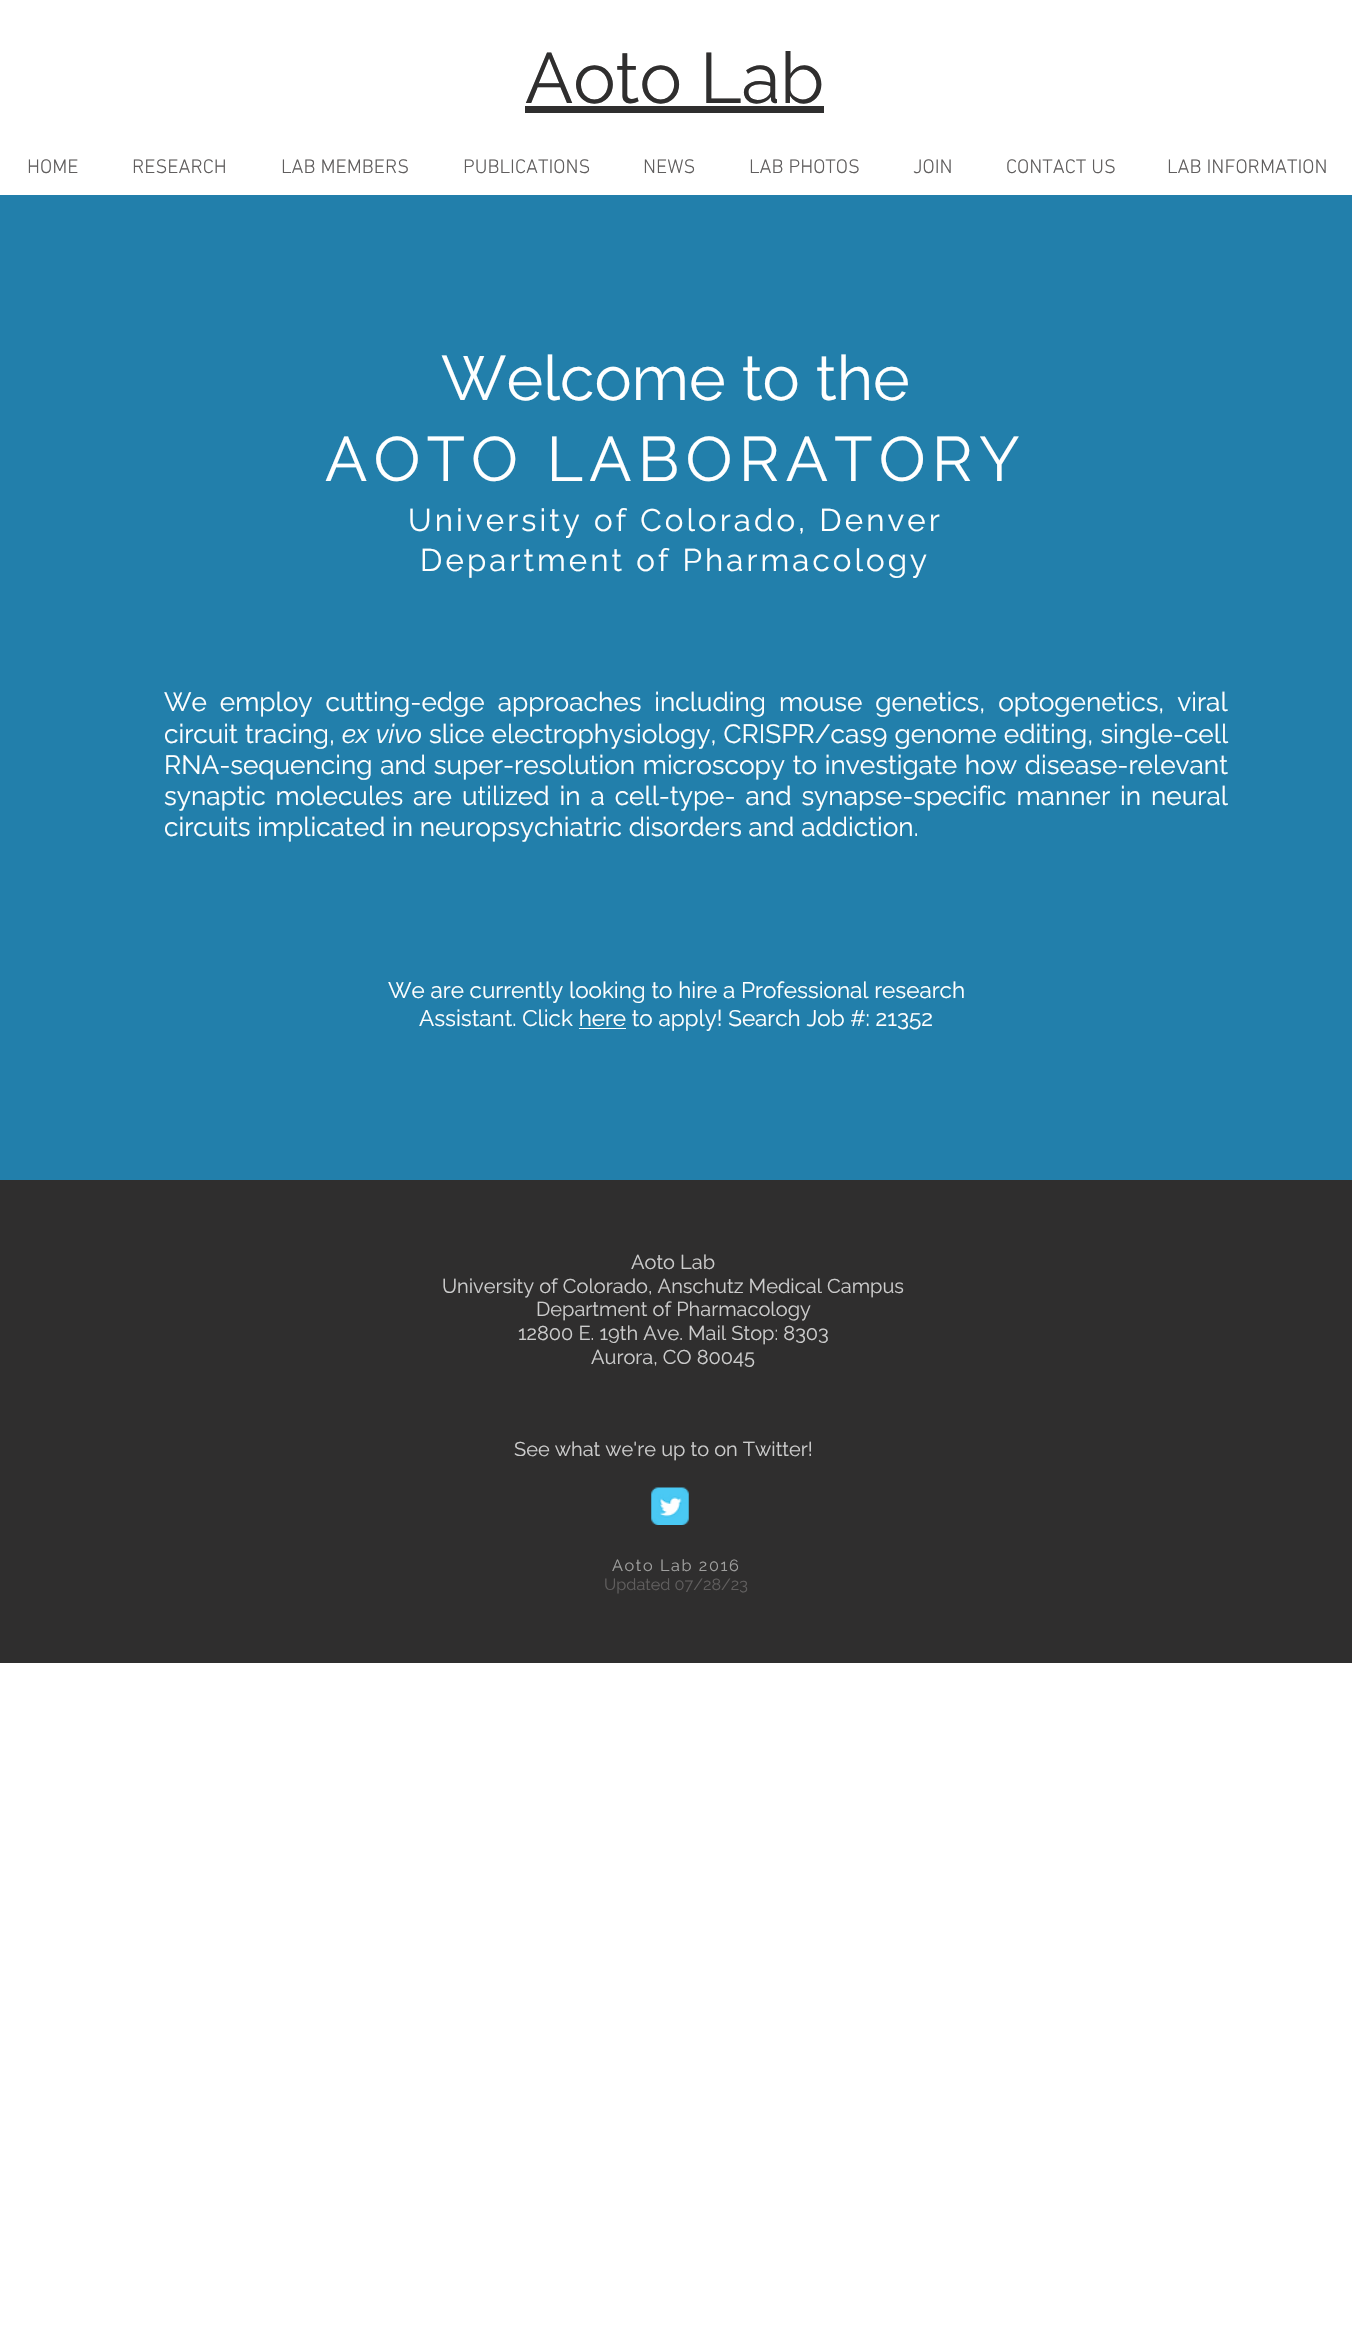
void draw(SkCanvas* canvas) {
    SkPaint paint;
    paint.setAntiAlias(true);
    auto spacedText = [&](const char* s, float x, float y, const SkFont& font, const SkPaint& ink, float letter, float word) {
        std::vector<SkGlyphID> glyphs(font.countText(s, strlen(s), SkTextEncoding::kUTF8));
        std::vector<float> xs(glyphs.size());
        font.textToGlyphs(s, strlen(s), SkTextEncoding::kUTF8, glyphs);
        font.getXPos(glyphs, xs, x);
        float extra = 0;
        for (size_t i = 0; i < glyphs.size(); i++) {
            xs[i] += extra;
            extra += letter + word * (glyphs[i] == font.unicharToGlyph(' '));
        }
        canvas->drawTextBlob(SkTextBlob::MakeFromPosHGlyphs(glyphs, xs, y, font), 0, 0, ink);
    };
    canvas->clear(0xFFFFFFFF);
    SkFont font1(fontMgr->matchFamilyStyle("Raleway", SkFontStyle::Normal()), 71.25f);
    font1.setSubpixel(true);
    paint.setColor(0xFF2F2E2E);
    canvas->drawString("Aoto Lab", 525, 103, font1, paint);
    canvas->drawRect(SkRect::MakeXYWH(525, 106, 299, 7), paint);
    SkFont font2(fontMgr->matchFamilyStyle("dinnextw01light", SkFontStyle(300, SkFontStyle::kNormal_Width, SkFontStyle::kUpright_Slant)), 20);
    font2.setSubpixel(true);
    paint.setColor(0xFF605E5E);
    canvas->drawString("HOME", 27, 173, font2, paint);
    canvas->drawString("RESEARCH", 132, 173, font2, paint);
    canvas->drawString("LAB MEMBERS", 281, 173, font2, paint);
    canvas->drawString("PUBLICATIONS", 463, 173, font2, paint);
    canvas->drawString("NEWS", 643, 173, font2, paint);
    canvas->drawString("LAB PHOTOS", 749, 173, font2, paint);
    canvas->drawString("JOIN", 913, 173, font2, paint);
    canvas->drawString("CONTACT US", 1006, 173, font2, paint);
    canvas->drawString("LAB INFORMATION", 1167, 173, font2, paint);
    paint.setColor(0xFF227FAB);
    canvas->drawRect(SkRect::MakeXYWH(0, 195, 1352, 985), paint);
    SkFont font3(fontMgr->matchFamilyStyle("Raleway", SkFontStyle::Normal()), 62.5f);
    font3.setSubpixel(true);
    paint.setColor(0xFFFFFFFF);
    canvas->drawString("Welcome to the", 441, 400, font3, paint);
    spacedText("AOTO LABORATORY", 325, 481, font3, paint, 6.25f, 0);
    SkFont font4(fontMgr->matchFamilyStyle("Raleway", SkFontStyle::Normal()), 31.25f);
    font4.setSubpixel(true);
    spacedText("University of Colorado, Denver", 408, 531, font4, paint, 3.1f, 0);
    spacedText("Department of Pharmacology", 420, 571, font4, paint, 3.1f, 0);
    SkFont font5(fontMgr->matchFamilyStyle("Raleway", SkFontStyle::Normal()), 26.25f);
    font5.setSubpixel(true);
    spacedText("We employ cutting-edge approaches including mouse genetics, optogenetics, viral", 164, 711, font5, paint, 0, 6.25f);
    spacedText("circuit tracing,", 164, 743, font5, paint, 0, 0.5f);
    SkFont font6(fontMgr->matchFamilyStyle("Raleway", SkFontStyle::Italic()), 26.25f);
    font6.setSubpixel(true);
    spacedText("ex vivo", 342, 743, font6, paint, 0, 0.5f);
    spacedText("slice electrophysiology, CRISPR/cas9 genome editing, single-cell", 429, 743, font5, paint, 0, 0.5f);
    spacedText("RNA-sequencing and super-resolution microscopy to investigate how disease-relevant", 164, 774, font5, paint, 0, 1);
    spacedText("synaptic molecules are utilized in a cell-type- and synapse-specific manner in neural", 164, 805, font5, paint, 0, 3.25f);
    canvas->drawString("circuits implicated in neuropsychiatric disorders and addiction.", 164, 836, font5, paint);
    SkFont font7(fontMgr->matchFamilyStyle("Raleway", SkFontStyle::Normal()), 22.5f);
    font7.setSubpixel(true);
    canvas->drawString("We are currently looking to hire a Professional research", 388, 998, font7, paint);
    canvas->drawString("Assistant. Click here to apply! Search Job #: 21352", 419, 1026, font7, paint);
    canvas->drawRect(SkRect::MakeXYWH(579, 1028, 47, 1), paint);
    paint.setColor(0xFF2F2E2E);
    canvas->drawRect(SkRect::MakeXYWH(0, 1180, 1352, 483), paint);
    SkFont font8(fontMgr->matchFamilyStyle("Raleway", SkFontStyle::Normal()), 20);
    font8.setSubpixel(true);
    paint.setColor(0xFFCCCCCC);
    canvas->drawString("Aoto Lab", 631, 1269, font8, paint);
    canvas->drawString("University of Colorado, Anschutz Medical Campus", 442, 1293, font8, paint);
    canvas->drawString("Department of Pharmacology", 536, 1316, font8, paint);
    canvas->drawString("12800 E. 19th Ave. Mail Stop: 8303", 518, 1340, font8, paint);
    canvas->drawString("Aurora, CO 80045", 591, 1364, font8, paint);
    canvas->drawString("See what we're up to on Twitter!", 514, 1456, font8, paint);
    canvas->drawImageRect(SkImages::DeferredFromEncodedData(SkData::MakeFromFileName("img1.png")), SkRect::MakeXYWH(651, 1487, 38, 38), SkSamplingOptions());
    SkFont font9(fontMgr->matchFamilyStyle("Raleway", SkFontStyle::Normal()), 16.25f);
    font9.setSubpixel(true);
    paint.setColor(0xFFA0A09F);
    spacedText("Aoto Lab 2016", 612, 1571, font9, paint, 1.6f, 0);
    paint.setColor(0xFF605E5E);
    canvas->drawString("Updated 07/28/23", 604, 1590, font9, paint);
}
